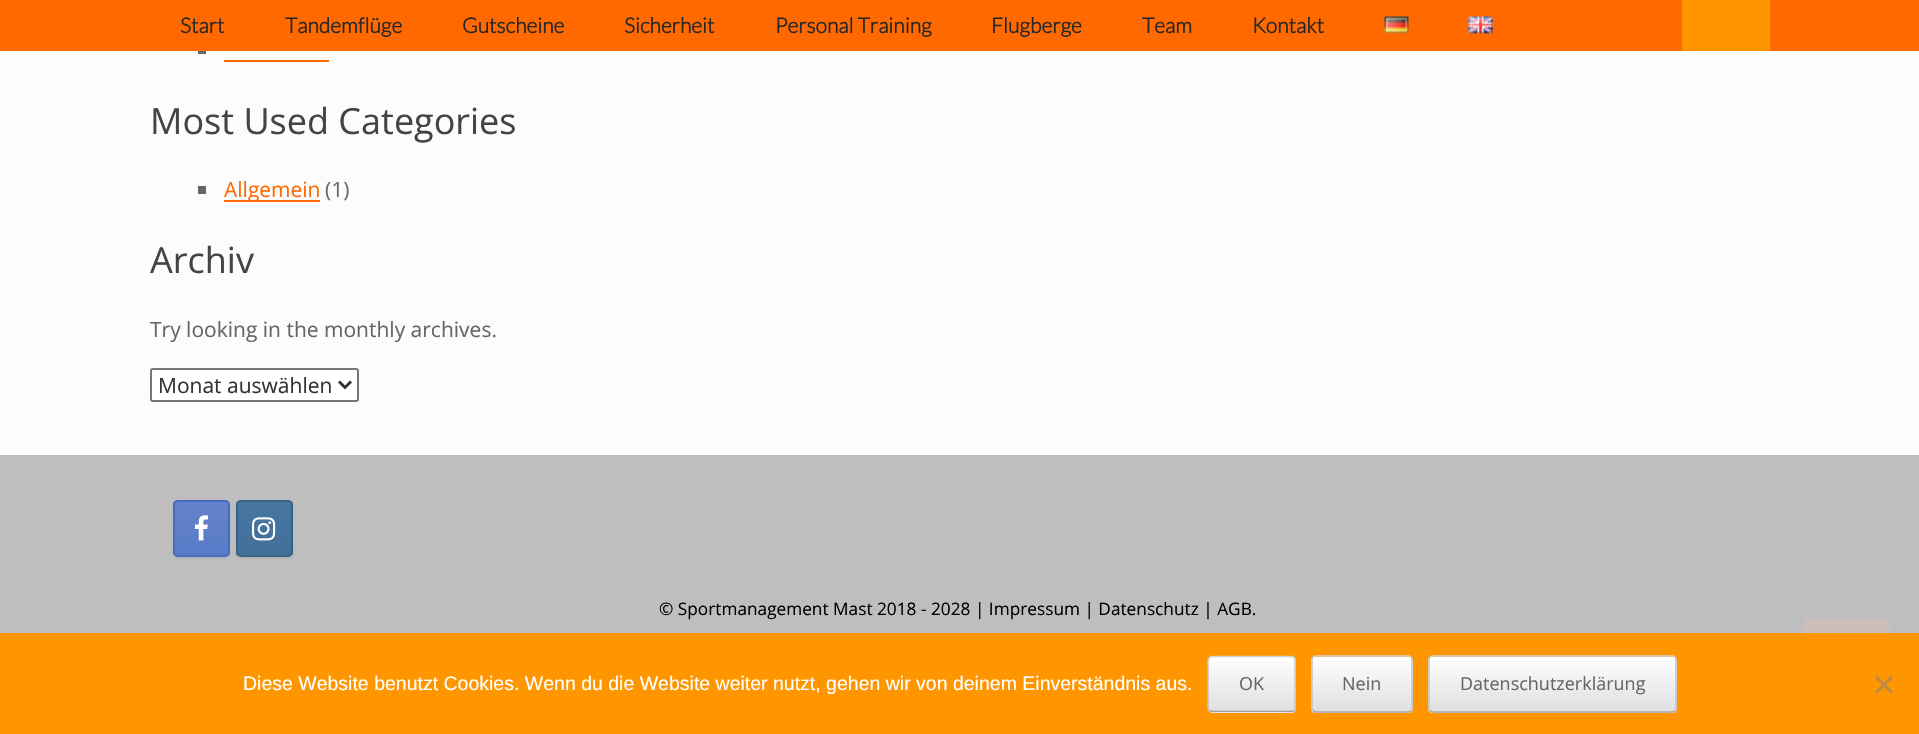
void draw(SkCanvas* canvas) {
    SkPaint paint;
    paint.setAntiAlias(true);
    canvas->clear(0xFFBEBEBE);
    paint.setColor(0xFFFF6900);
    canvas->drawRect(SkRect::MakeXYWH(0, 0, 1919, 51), paint);
    SkFont font1(fontMgr->matchFamilyStyle("Lato", SkFontStyle::Bold()), 21);
    font1.setSubpixel(true);
    paint.setColor(0xFF282828);
    canvas->drawString("Start", 180, 33, font1, paint);
    canvas->drawString("Tandemflüge", 285, 33, font1, paint);
    canvas->drawString("Gutscheine", 462, 33, font1, paint);
    canvas->drawString("Sicherheit", 624, 33, font1, paint);
    canvas->drawString("Personal Training", 775, 33, font1, paint);
    canvas->drawString("Flugberge", 991, 33, font1, paint);
    canvas->drawString("Team", 1142, 33, font1, paint);
    canvas->drawString("Kontakt", 1252, 33, font1, paint);
    canvas->drawImageRect(SkImages::DeferredFromEncodedData(SkData::MakeFromFileName("img1.png")), SkRect::MakeXYWH(1384, 16, 25, 18), SkSamplingOptions());
    canvas->drawImageRect(SkImages::DeferredFromEncodedData(SkData::MakeFromFileName("img2.png")), SkRect::MakeXYWH(1468, 16, 25, 18), SkSamplingOptions());
    paint.setColor(0xFFFF9600);
    canvas->drawRect(SkRect::MakeXYWH(1682, 0, 88, 51), paint);
    paint.setColor(0xFFFCFCFC);
    canvas->drawRect(SkRect::MakeXYWH(0, 51, 1919, 404), paint);
    paint.setColor(0xFF666666);
    canvas->drawRect(SkRect::MakeXYWH(198, 51, 8, 3), paint);
    paint.setColor(0xFFFF6900);
    canvas->drawRect(SkRect::MakeXYWH(224, 60, 105, 2), paint);
    SkFont font2(fontMgr->matchFamilyStyle("Open Sans", SkFontStyle::Normal()), 36);
    font2.setSubpixel(true);
    paint.setColor(0xFF444444);
    canvas->drawString("Most Used Categories", 150, 134, font2, paint);
    paint.setColor(0xFF666666);
    canvas->drawRect(SkRect::MakeXYWH(198, 186, 8, 8), paint);
    paint.setColor(0xFFFF6900);
    canvas->drawRect(SkRect::MakeXYWH(224, 200, 96, 2), paint);
    SkFont font3(fontMgr->matchFamilyStyle("Open Sans", SkFontStyle::Normal()), 21);
    font3.setSubpixel(true);
    canvas->drawString("Allgemein", 224, 197, font3, paint);
    paint.setColor(0xFF666666);
    canvas->drawString("(1)", 325, 197, font3, paint);
    paint.setColor(0xFF444444);
    canvas->drawString("Archiv", 150, 273, font2, paint);
    paint.setColor(0xFF666666);
    canvas->drawString("Try looking in the monthly archives.", 150, 337, font3, paint);
    paint.setColor(0xFFFFFFFF);
    canvas->drawRoundRect(SkRect::MakeXYWH(151, 369, 207, 32), 2, 2, paint);
    paint.setStyle(SkPaint::kStroke_Style);
    paint.setStrokeWidth(2);
    paint.setColor(0xFF767676);
    canvas->drawRoundRect(SkRect::MakeXYWH(151, 369, 207, 32), 2, 2, paint);
    paint.setStrokeWidth(3);
    paint.setColor(0xFF333333);
    canvas->drawPath(SkPathBuilder().moveTo(339, 381.5f).lineTo(345, 387.5f).lineTo(351, 381.5f).detach(), paint);
    paint.setStyle(SkPaint::kFill_Style);
    canvas->drawString("Monat auswählen", 158, 393, font3, paint);
    paint.setColor(0x1A000000);
    paint.setMaskFilter(SkMaskFilter::MakeBlur(kNormal_SkBlurStyle, 1));
    canvas->drawRoundRect(SkRect::MakeXYWH(173, 501, 57, 57), 5, 5, paint);
    paint.setMaskFilter(nullptr);
    canvas->save();
    canvas->clipPath(SkPathBuilder().moveTo(178, 500).lineTo(225, 500).cubicTo(228, 500, 230, 502, 230, 505).lineTo(230, 552).cubicTo(230, 555, 228, 557, 225, 557).lineTo(178, 557).cubicTo(175, 557, 173, 555, 173, 552).lineTo(173, 505).cubicTo(173, 502, 175, 500, 178, 500).close().detach(), true);
    {
        const SkColor colors[] = {0xFF597AC7, 0xFF6483CB};
        const float stops[] = {0, 1};
        const SkPoint ends[] = {{174, 555}, {174, 501}};
        paint.setShader(SkGradientShader::MakeLinear(ends, colors, stops, 2, SkTileMode::kClamp));
        paint.setAlpha(255);
    }
    canvas->drawRect(SkRect::MakeXYWH(173, 501, 57, 54), paint);
    canvas->restore();
    paint.setStyle(SkPaint::kStroke_Style);
    paint.setStrokeWidth(2);
    paint.setShader(nullptr);
    paint.setColor(0xFF466BC1);
    canvas->drawRoundRect(SkRect::MakeXYWH(174, 501, 55, 55), 4, 4, paint);
    canvas->drawImageRect(SkImages::DeferredFromEncodedData(SkData::MakeFromFileName("img3.png")), SkRect::MakeXYWH(194, 515, 14, 26), SkSamplingOptions());
    paint.setStyle(SkPaint::kFill_Style);
    paint.setColor(0x1A000000);
    paint.setMaskFilter(SkMaskFilter::MakeBlur(kNormal_SkBlurStyle, 1));
    canvas->drawRoundRect(SkRect::MakeXYWH(236, 501, 57, 57), 5, 5, paint);
    paint.setMaskFilter(nullptr);
    canvas->save();
    canvas->clipPath(SkPathBuilder().moveTo(241, 500).lineTo(288, 500).cubicTo(291, 500, 293, 502, 293, 505).lineTo(293, 552).cubicTo(293, 555, 291, 557, 288, 557).lineTo(241, 557).cubicTo(238, 557, 236, 555, 236, 552).lineTo(236, 505).cubicTo(236, 502, 238, 500, 241, 500).close().detach(), true);
    {
        const SkColor colors[] = {0xFF426F98, 0xFF4777A3};
        const float stops[] = {0, 1};
        const SkPoint ends[] = {{237, 555}, {237, 501}};
        paint.setShader(SkGradientShader::MakeLinear(ends, colors, stops, 2, SkTileMode::kClamp));
        paint.setAlpha(255);
    }
    canvas->drawRect(SkRect::MakeXYWH(236, 501, 57, 54), paint);
    canvas->restore();
    paint.setStyle(SkPaint::kStroke_Style);
    paint.setShader(nullptr);
    paint.setColor(0xFF3A6286);
    canvas->drawRoundRect(SkRect::MakeXYWH(237, 501, 55, 55), 4, 4, paint);
    canvas->drawImageRect(SkImages::DeferredFromEncodedData(SkData::MakeFromFileName("img4.png")), SkRect::MakeXYWH(252, 517, 24, 24), SkSamplingOptions());
    SkFont font4(fontMgr->matchFamilyStyle("Open Sans", SkFontStyle::Normal()), 17.25f);
    font4.setSubpixel(true);
    paint.setStyle(SkPaint::kFill_Style);
    paint.setColor(0xFF000000);
    canvas->drawString("© Sportmanagement Mast 2018 - 2028 | Impressum | Datenschutz | AGB.", 659, 615, font4, paint);
    paint.setColor(0xFFCBBEB8);
    canvas->drawRoundRect(SkRect::MakeXYWH(1803, 618, 87, 87), 5, 5, paint);
    paint.setColor(0xFFFF9600);
    canvas->drawRect(SkRect::MakeXYWH(0, 633, 1919, 101), paint);
    SkFont font5(fontMgr->matchFamilyStyle("Liberation Sans", SkFontStyle::Normal()), 19.5f);
    font5.setSubpixel(true);
    paint.setColor(0xFFFFFFFF);
    canvas->drawString("Diese Website benutzt Cookies. Wenn du die Website weiter nutzt, gehen wir von deinem Einverständnis aus.", 243, 690, font5, paint);
    canvas->save();
    canvas->clipPath(SkPathBuilder().moveTo(1213, 656).lineTo(1291, 656).cubicTo(1294, 656, 1296, 658, 1296, 661).lineTo(1296, 708).cubicTo(1296, 711, 1294, 713, 1291, 713).lineTo(1213, 713).cubicTo(1210, 713, 1208, 711, 1208, 708).lineTo(1208, 661).cubicTo(1208, 658, 1210, 656, 1213, 656).close().detach(), true);
    {
        const SkColor colors[] = {0xFFDFDFDF, 0xFFFFFFFF};
        const float stops[] = {0, 1};
        const SkPoint ends[] = {{1209, 711}, {1209, 657}};
        paint.setShader(SkGradientShader::MakeLinear(ends, colors, stops, 2, SkTileMode::kClamp));
        paint.setAlpha(255);
    }
    canvas->drawRect(SkRect::MakeXYWH(1208, 657, 88, 54), paint);
    {
        const SkColor colors[] = {0xFFDFDFDF, 0xFFFFFFFF};
        const float stops[] = {0, 1};
        const SkPoint ends[] = {{1209, 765}, {1209, 711}};
        paint.setShader(SkGradientShader::MakeLinear(ends, colors, stops, 2, SkTileMode::kClamp));
        paint.setAlpha(255);
    }
    canvas->drawRect(SkRect::MakeXYWH(1208, 711, 88, 2), paint);
    canvas->restore();
    paint.setStyle(SkPaint::kStroke_Style);
    paint.setStrokeWidth(1.5f);
    paint.setShader(nullptr);
    paint.setColor(0xFFD2D2D2);
    canvas->drawPath(SkPathBuilder().moveTo(1209.5f, 657.5f).lineTo(1211.5f, 656.5f).lineTo(1292, 656.5f).lineTo(1294, 657.5f).detach(), paint);
    paint.setColor(0xFFC3C3C3);
    canvas->drawPath(SkPathBuilder().moveTo(1294, 657.5f).cubicTo(1295, 658, 1295, 659, 1295, 660).lineTo(1295, 708).cubicTo(1295, 709, 1295, 710, 1294, 710.5f).detach(), paint);
    paint.setColor(0xFF9F9F9F);
    canvas->drawPath(SkPathBuilder().moveTo(1294, 710.5f).lineTo(1292, 711.5f).lineTo(1211.5f, 711.5f).lineTo(1209.5f, 710.5f).detach(), paint);
    paint.setColor(0xFFC3C3C3);
    canvas->drawPath(SkPathBuilder().moveTo(1209.5f, 710.5f).cubicTo(1208.5f, 710, 1208, 709, 1208, 708).lineTo(1208, 660).cubicTo(1208, 659, 1208.5f, 658, 1209.5f, 657.5f).detach(), paint);
    SkFont font6(fontMgr->matchFamilyStyle("Open Sans", SkFontStyle::Normal()), 18);
    font6.setSubpixel(true);
    paint.setStyle(SkPaint::kFill_Style);
    paint.setColor(0xFF666666);
    canvas->drawString("OK", 1239, 690, font6, paint);
    canvas->save();
    canvas->clipPath(SkPathBuilder().moveTo(1316, 656).lineTo(1408, 656).cubicTo(1411, 656, 1413, 658, 1413, 661).lineTo(1413, 708).cubicTo(1413, 711, 1411, 713, 1408, 713).lineTo(1316, 713).cubicTo(1313, 713, 1311, 711, 1311, 708).lineTo(1311, 661).cubicTo(1311, 658, 1313, 656, 1316, 656).close().detach(), true);
    {
        const SkColor colors[] = {0xFFDFDFDF, 0xFFFFFFFF};
        const float stops[] = {0, 1};
        const SkPoint ends[] = {{1313, 711}, {1313, 657}};
        paint.setShader(SkGradientShader::MakeLinear(ends, colors, stops, 2, SkTileMode::kClamp));
        paint.setAlpha(255);
    }
    canvas->drawRect(SkRect::MakeXYWH(1311, 657, 102, 54), paint);
    {
        const SkColor colors[] = {0xFFDFDFDF, 0xFFFFFFFF};
        const float stops[] = {0, 1};
        const SkPoint ends[] = {{1313, 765}, {1313, 711}};
        paint.setShader(SkGradientShader::MakeLinear(ends, colors, stops, 2, SkTileMode::kClamp));
        paint.setAlpha(255);
    }
    canvas->drawRect(SkRect::MakeXYWH(1311, 711, 102, 2), paint);
    canvas->restore();
    paint.setStyle(SkPaint::kStroke_Style);
    paint.setShader(nullptr);
    paint.setColor(0xFFD2D2D2);
    canvas->drawPath(SkPathBuilder().moveTo(1313, 657.5f).cubicTo(1313.5f, 656.5f, 1314.5f, 656, 1315.5f, 656).lineTo(1408.5f, 656).cubicTo(1409.5f, 656, 1410.5f, 656.5f, 1411, 657.5f).detach(), paint);
    paint.setColor(0xFFC3C3C3);
    canvas->drawPath(SkPathBuilder().moveTo(1411, 657.5f).cubicTo(1412, 658, 1412, 659, 1412, 660).lineTo(1412, 708).cubicTo(1412, 709, 1412, 710, 1411, 710.5f).detach(), paint);
    paint.setColor(0xFF9F9F9F);
    canvas->drawPath(SkPathBuilder().moveTo(1411, 710.5f).cubicTo(1410.5f, 711.5f, 1409.5f, 712, 1408.5f, 712).lineTo(1315.5f, 712).cubicTo(1314.5f, 712, 1313.5f, 711.5f, 1313, 710.5f).detach(), paint);
    paint.setColor(0xFFC3C3C3);
    canvas->drawPath(SkPathBuilder().moveTo(1313, 710.5f).cubicTo(1312, 710, 1312, 709, 1312, 708).lineTo(1312, 660).cubicTo(1312, 659, 1312, 658, 1313, 657.5f).detach(), paint);
    paint.setStyle(SkPaint::kFill_Style);
    paint.setColor(0xFF666666);
    canvas->drawString("Nein", 1342, 690, font6, paint);
    canvas->save();
    canvas->clipPath(SkPathBuilder().moveTo(1433, 656).lineTo(1672, 656).cubicTo(1675, 656, 1677, 658, 1677, 661).lineTo(1677, 708).cubicTo(1677, 711, 1675, 713, 1672, 713).lineTo(1433, 713).cubicTo(1430, 713, 1428, 711, 1428, 708).lineTo(1428, 661).cubicTo(1428, 658, 1430, 656, 1433, 656).close().detach(), true);
    {
        const SkColor colors[] = {0xFFDFDFDF, 0xFFFFFFFF};
        const float stops[] = {0, 1};
        const SkPoint ends[] = {{1430, 711}, {1430, 657}};
        paint.setShader(SkGradientShader::MakeLinear(ends, colors, stops, 2, SkTileMode::kClamp));
        paint.setAlpha(255);
    }
    canvas->drawRect(SkRect::MakeXYWH(1428, 657, 249, 54), paint);
    {
        const SkColor colors[] = {0xFFDFDFDF, 0xFFFFFFFF};
        const float stops[] = {0, 1};
        const SkPoint ends[] = {{1430, 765}, {1430, 711}};
        paint.setShader(SkGradientShader::MakeLinear(ends, colors, stops, 2, SkTileMode::kClamp));
        paint.setAlpha(255);
    }
    canvas->drawRect(SkRect::MakeXYWH(1428, 711, 249, 2), paint);
    canvas->restore();
    paint.setStyle(SkPaint::kStroke_Style);
    paint.setShader(nullptr);
    paint.setColor(0xFFD2D2D2);
    canvas->drawPath(SkPathBuilder().moveTo(1430, 657.5f).cubicTo(1430.5f, 656.5f, 1431.5f, 656, 1432.5f, 656).lineTo(1672.5f, 656).cubicTo(1673.5f, 656, 1674.5f, 656.5f, 1675, 657.5f).detach(), paint);
    paint.setColor(0xFFC3C3C3);
    canvas->drawPath(SkPathBuilder().moveTo(1675, 657.5f).cubicTo(1676, 658, 1676, 659, 1676, 660).lineTo(1676, 708).cubicTo(1676, 709, 1676, 710, 1675, 710.5f).detach(), paint);
    paint.setColor(0xFF9F9F9F);
    canvas->drawPath(SkPathBuilder().moveTo(1675, 710.5f).cubicTo(1674.5f, 711.5f, 1673.5f, 712, 1672.5f, 712).lineTo(1432.5f, 712).cubicTo(1431.5f, 712, 1430.5f, 711.5f, 1430, 710.5f).detach(), paint);
    paint.setColor(0xFFC3C3C3);
    canvas->drawPath(SkPathBuilder().moveTo(1430, 710.5f).cubicTo(1429, 710, 1429, 709, 1429, 708).lineTo(1429, 660).cubicTo(1429, 659, 1429, 658, 1430, 657.5f).detach(), paint);
    paint.setStyle(SkPaint::kFill_Style);
    paint.setColor(0xFF666666);
    canvas->drawString("Datenschutzerklärung", 1460, 690, font6, paint);
    paint.setColor(0xFFC08B40);
    canvas->drawPath(SkPathBuilder().moveTo(1891, 675.5f).lineTo(1893, 678).lineTo(1877, 694).lineTo(1875, 691.5f).close().detach(), paint);
    canvas->drawPath(SkPathBuilder().moveTo(1875, 678).lineTo(1877, 675.5f).lineTo(1893, 691.5f).lineTo(1891, 694).close().detach(), paint);
}
